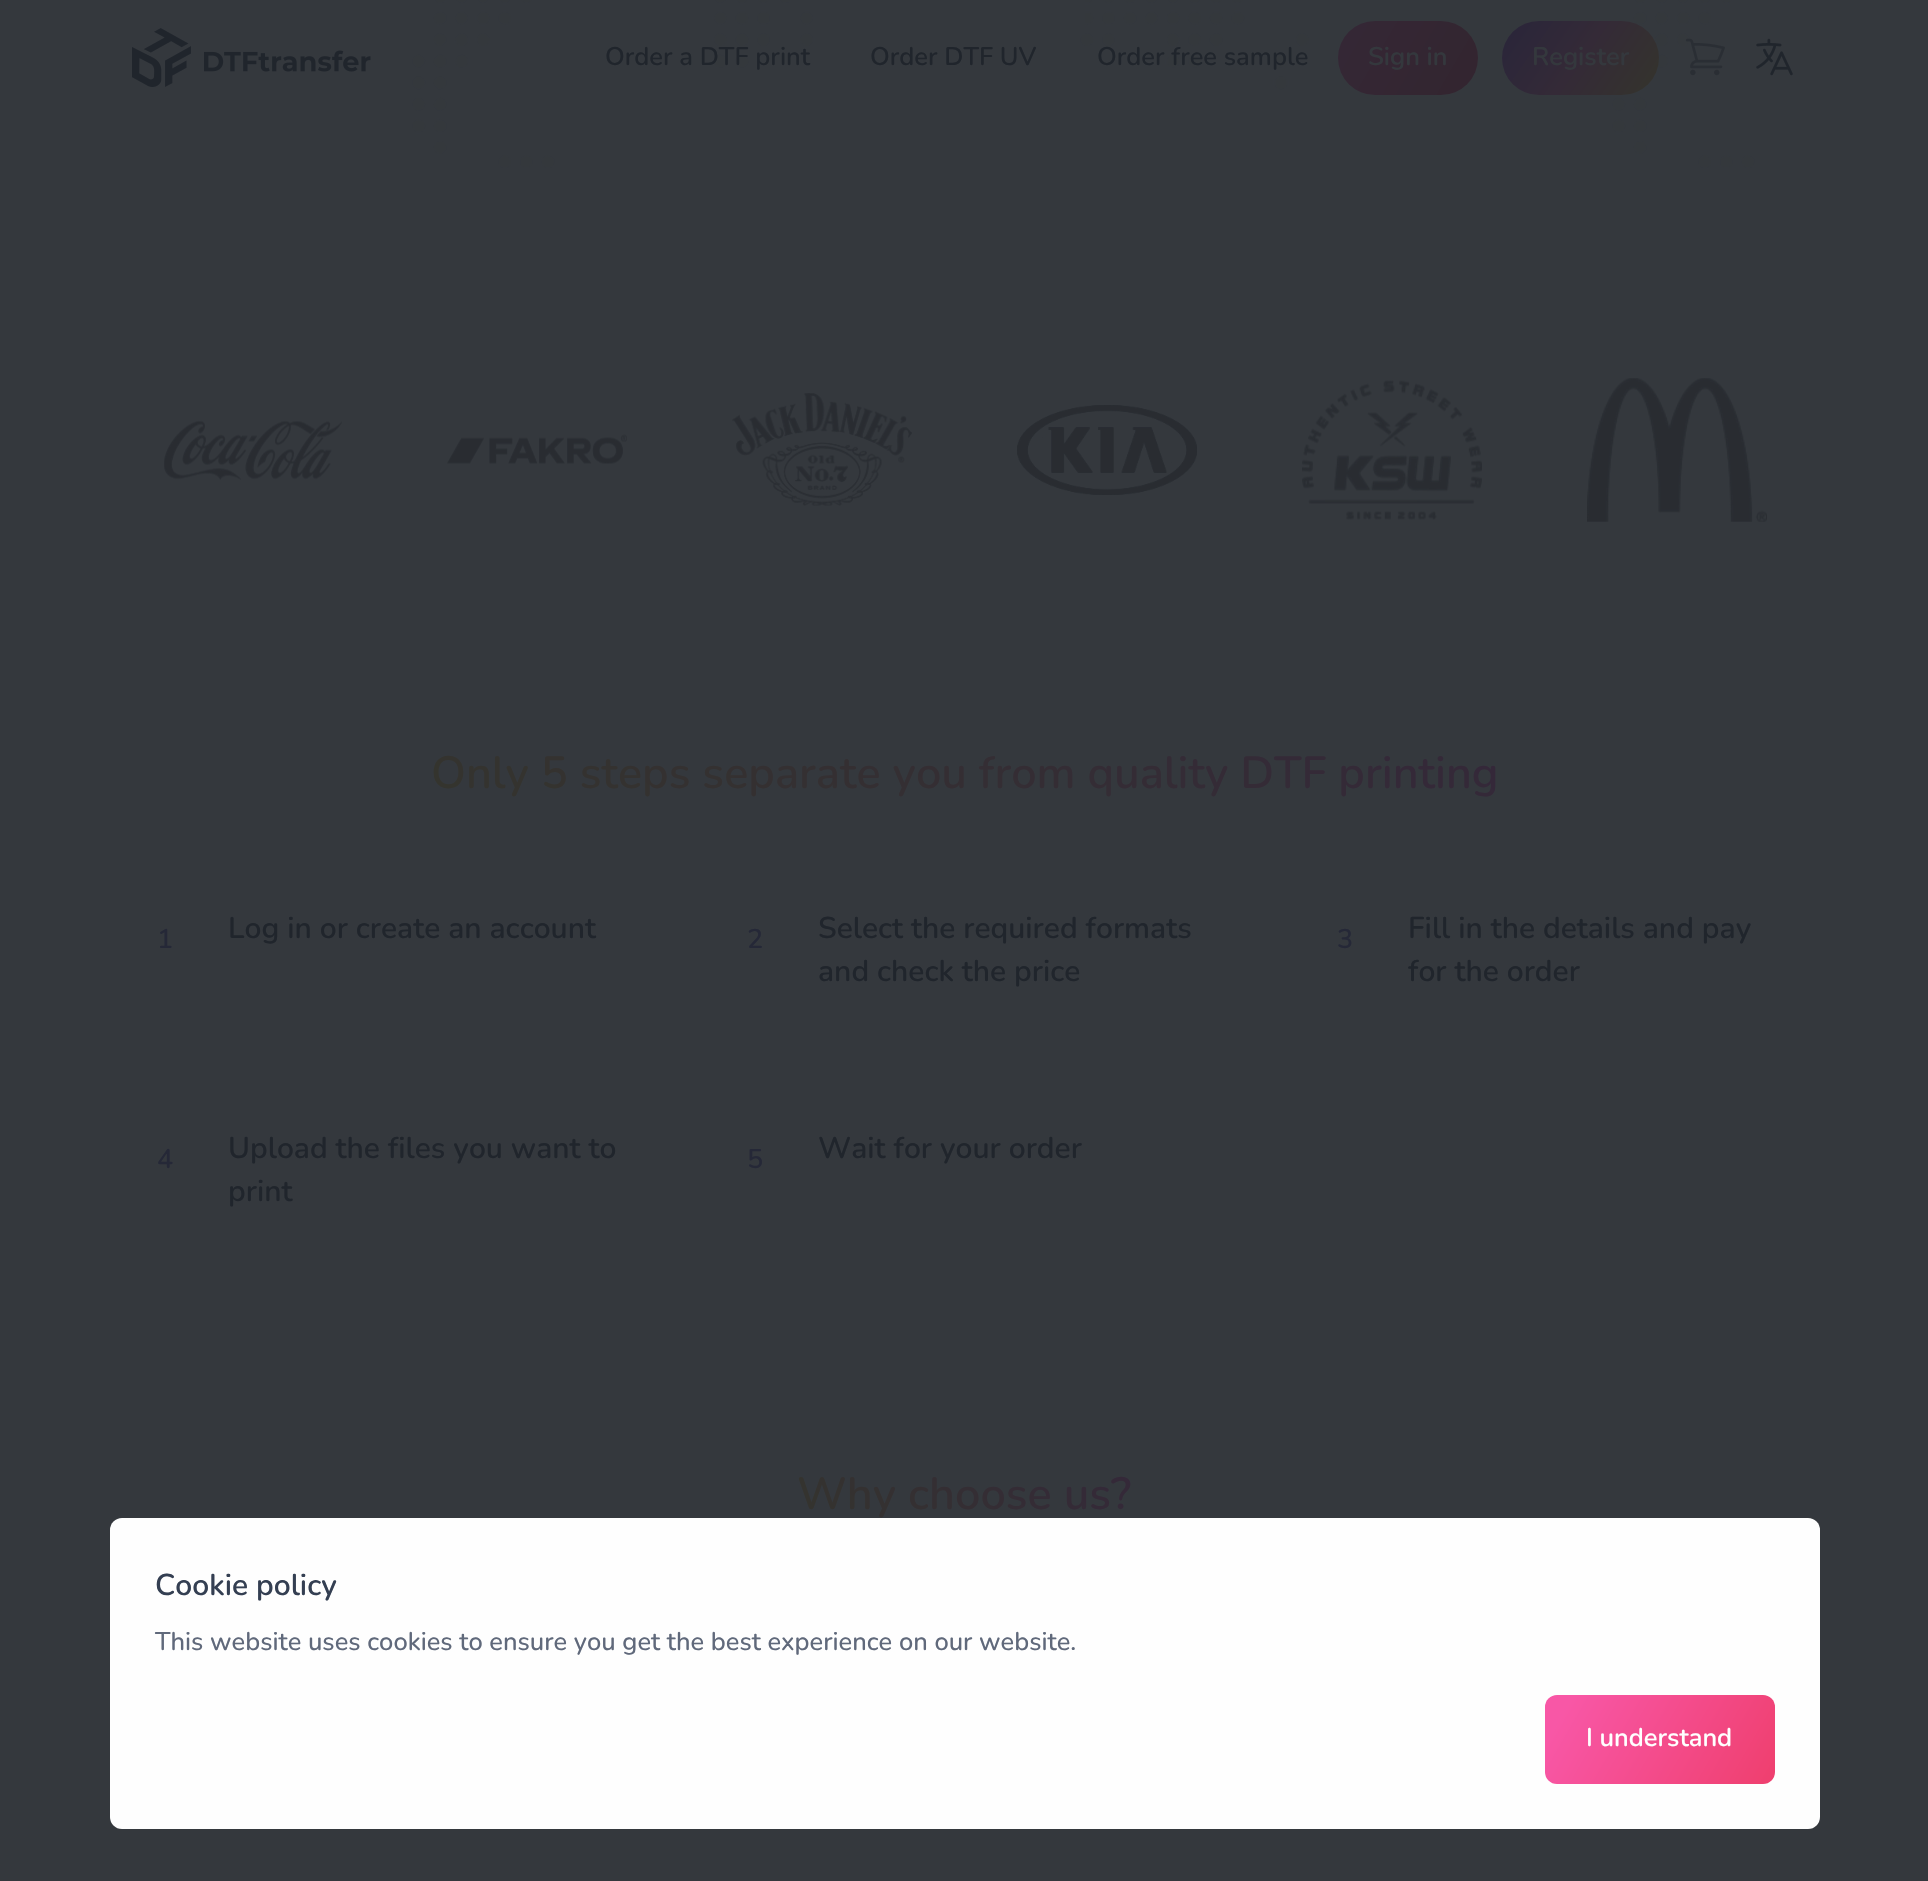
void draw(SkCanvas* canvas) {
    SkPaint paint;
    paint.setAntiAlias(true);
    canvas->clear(0xFF34383D);
    canvas->drawImageRect(SkImages::DeferredFromEncodedData(SkData::MakeFromFileName("img4.png")), SkRect::MakeXYWH(412, 0, 1343, 169), SkSamplingOptions());
    {
        const SkColor colors[] = {0xFF342735, 0xFF33252F};
        const float stops[] = {0.1f, 1};
        const SkPoint ends[] = {{855, -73}, {1074, 53}};
        paint.setShader(SkGradientShader::MakeLinear(ends, colors, stops, 2, SkTileMode::kClamp));
        paint.setAlpha(255);
    }
    canvas->drawRoundRect(SkRect::MakeXYWH(845, -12, 240, 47), 12, 12, paint);
    paint.setShader(nullptr);
    paint.setColor(0xF734383D);
    canvas->drawRect(SkRect::MakeXYWH(845, 0, 240, 35), paint);
    canvas->drawImageRect(SkImages::DeferredFromEncodedData(SkData::MakeFromFileName("img1.png")), SkRect::MakeXYWH(132, 28, 239, 59), SkSamplingOptions());
    SkFont font1(fontMgr->matchFamilyStyle("Nunito", SkFontStyle(600, SkFontStyle::kNormal_Width, SkFontStyle::kUpright_Slant)), 25.5f);
    font1.setSubpixel(true);
    paint.setColor(0xFF20252C);
    canvas->drawString("Order a DTF print", 605, 65, font1, paint);
    canvas->drawString("Order DTF UV", 870, 65, font1, paint);
    canvas->drawString("Order free sample", 1097, 65, font1, paint);
    {
        const SkColor colors[] = {0xFF342735, 0xFF33252F};
        const float stops[] = {0.1f, 1};
        const SkPoint ends[] = {{1340, 18}, {1476, 97}};
        paint.setShader(SkGradientShader::MakeLinear(ends, colors, stops, 2, SkTileMode::kClamp));
        paint.setAlpha(255);
    }
    canvas->drawRoundRect(SkRect::MakeXYWH(1338, 21, 140, 74), 37, 37, paint);
    paint.setShader(nullptr);
    paint.setColor(0xFF34383D);
    canvas->drawString("Sign in", 1368, 65, font1, paint);
    {
        const SkColor colors[] = {0xFF29253A, 0xFF342A37, 0xFF34342C};
        const float stops[] = {0, 0.5f, 1};
        const SkPoint ends[] = {{1510, 9}, {1650, 107}};
        paint.setShader(SkGradientShader::MakeLinear(ends, colors, stops, 3, SkTileMode::kClamp));
        paint.setAlpha(255);
    }
    canvas->drawRoundRect(SkRect::MakeXYWH(1502, 21, 157, 74), 37, 37, paint);
    paint.setShader(nullptr);
    paint.setColor(0xFF34383D);
    canvas->drawString("Register", 1532, 65, font1, paint);
    canvas->drawImageRect(SkImages::DeferredFromEncodedData(SkData::MakeFromFileName("img2.png")), SkRect::MakeXYWH(1685, 38, 40, 38), SkSamplingOptions());
    canvas->drawImageRect(SkImages::DeferredFromEncodedData(SkData::MakeFromFileName("img3.png")), SkRect::MakeXYWH(1756, 38, 37, 38), SkSamplingOptions());
    canvas->drawImageRect(SkImages::DeferredFromEncodedData(SkData::MakeFromFileName("img5.png")), SkRect::MakeXYWH(164, 420, 178, 60), SkSamplingOptions());
    canvas->drawImageRect(SkImages::DeferredFromEncodedData(SkData::MakeFromFileName("img6.png")), SkRect::MakeXYWH(447, 434, 180, 30), SkSamplingOptions());
    canvas->drawImageRect(SkImages::DeferredFromEncodedData(SkData::MakeFromFileName("img7.png")), SkRect::MakeXYWH(732, 393, 180, 113), SkSamplingOptions());
    canvas->drawImageRect(SkImages::DeferredFromEncodedData(SkData::MakeFromFileName("img8.png")), SkRect::MakeXYWH(1017, 405, 180, 90), SkSamplingOptions());
    canvas->drawImageRect(SkImages::DeferredFromEncodedData(SkData::MakeFromFileName("img9.png")), SkRect::MakeXYWH(1302, 380, 180, 140), SkSamplingOptions());
    canvas->drawImageRect(SkImages::DeferredFromEncodedData(SkData::MakeFromFileName("img10.png")), SkRect::MakeXYWH(1587, 378, 180, 144), SkSamplingOptions());
    SkFont font2(fontMgr->matchFamilyStyle("Nunito", SkFontStyle(600, SkFontStyle::kNormal_Width, SkFontStyle::kUpright_Slant)), 45);
    font2.setSubpixel(true);
    {
        const SkColor colors[] = {0xFF34342E, 0xFF342839};
        const float stops[] = {0, 1};
        const SkPoint ends[] = {{684, 1054}, {1245, 494}};
        paint.setShader(SkGradientShader::MakeLinear(ends, colors, stops, 2, SkTileMode::kClamp));
        paint.setAlpha(255);
    }
    canvas->drawString("Only 5 steps separate you from quality DTF printing", 431, 788, font2, paint);
    SkFont font3(fontMgr->matchFamilyStyle("Nunito", SkFontStyle(600, SkFontStyle::kNormal_Width, SkFontStyle::kUpright_Slant)), 27);
    font3.setSubpixel(true);
    paint.setShader(nullptr);
    paint.setColor(0xFF252837);
    canvas->drawString("1", 157, 948, font3, paint);
    SkFont font4(fontMgr->matchFamilyStyle("Nunito", SkFontStyle(600, SkFontStyle::kNormal_Width, SkFontStyle::kUpright_Slant)), 30);
    font4.setSubpixel(true);
    paint.setColor(0xFF20252C);
    canvas->drawString("Log in or create an account", 228, 938, font4, paint);
    paint.setColor(0xFF252837);
    canvas->drawString("2", 747, 948, font3, paint);
    paint.setColor(0xFF20252C);
    canvas->drawString("Select the required formats", 818, 938, font4, paint);
    canvas->drawString("and check the price", 818, 981, font4, paint);
    paint.setColor(0xFF252837);
    canvas->drawString("3", 1337, 948, font3, paint);
    paint.setColor(0xFF20252C);
    canvas->drawString("Fill in the details and pay", 1408, 938, font4, paint);
    canvas->drawString("for the order", 1408, 981, font4, paint);
    paint.setColor(0xFF252837);
    canvas->drawString("4", 157, 1168, font3, paint);
    paint.setColor(0xFF20252C);
    canvas->drawString("Upload the files you want to", 228, 1158, font4, paint);
    canvas->drawString("print", 228, 1201, font4, paint);
    paint.setColor(0xFF252837);
    canvas->drawString("5", 747, 1168, font3, paint);
    paint.setColor(0xFF20252C);
    canvas->drawString("Wait for your order", 818, 1158, font4, paint);
    {
        const SkColor colors[] = {0xFF34342E, 0xFF342839};
        const float stops[] = {0, 1};
        const SkPoint ends[] = {{867, 1592}, {1062, 1398}};
        paint.setShader(SkGradientShader::MakeLinear(ends, colors, stops, 2, SkTileMode::kClamp));
        paint.setAlpha(255);
    }
    canvas->drawString("Why choose us?", 797, 1509, font2, paint);
    paint.setShader(nullptr);
    paint.setColor(0xFFFEFEFE);
    canvas->drawRoundRect(SkRect::MakeXYWH(110, 1518, 1710, 311), 12, 12, paint);
    paint.setColor(0xFF343F52);
    canvas->drawString("Cookie policy", 155, 1595, font4, paint);
    SkFont font5(fontMgr->matchFamilyStyle("Nunito", SkFontStyle(500, SkFontStyle::kNormal_Width, SkFontStyle::kUpright_Slant)), 25.5f);
    font5.setSubpixel(true);
    paint.setColor(0xFF60697B);
    canvas->drawString("This website uses cookies to ensure you get the best experience on our website.", 155, 1650, font5, paint);
    {
        const SkColor colors[] = {0xFFF857A6, 0xFFEF3F6E};
        const float stops[] = {0.1f, 1};
        const SkPoint ends[] = {{1555, 1678}, {1765, 1800}};
        paint.setShader(SkGradientShader::MakeLinear(ends, colors, stops, 2, SkTileMode::kClamp));
        paint.setAlpha(255);
    }
    canvas->drawRoundRect(SkRect::MakeXYWH(1545, 1695, 230, 89), 12, 12, paint);
    paint.setShader(nullptr);
    paint.setColor(0xFFFFFFFF);
    canvas->drawString("I understand", 1586, 1746, font1, paint);
}
